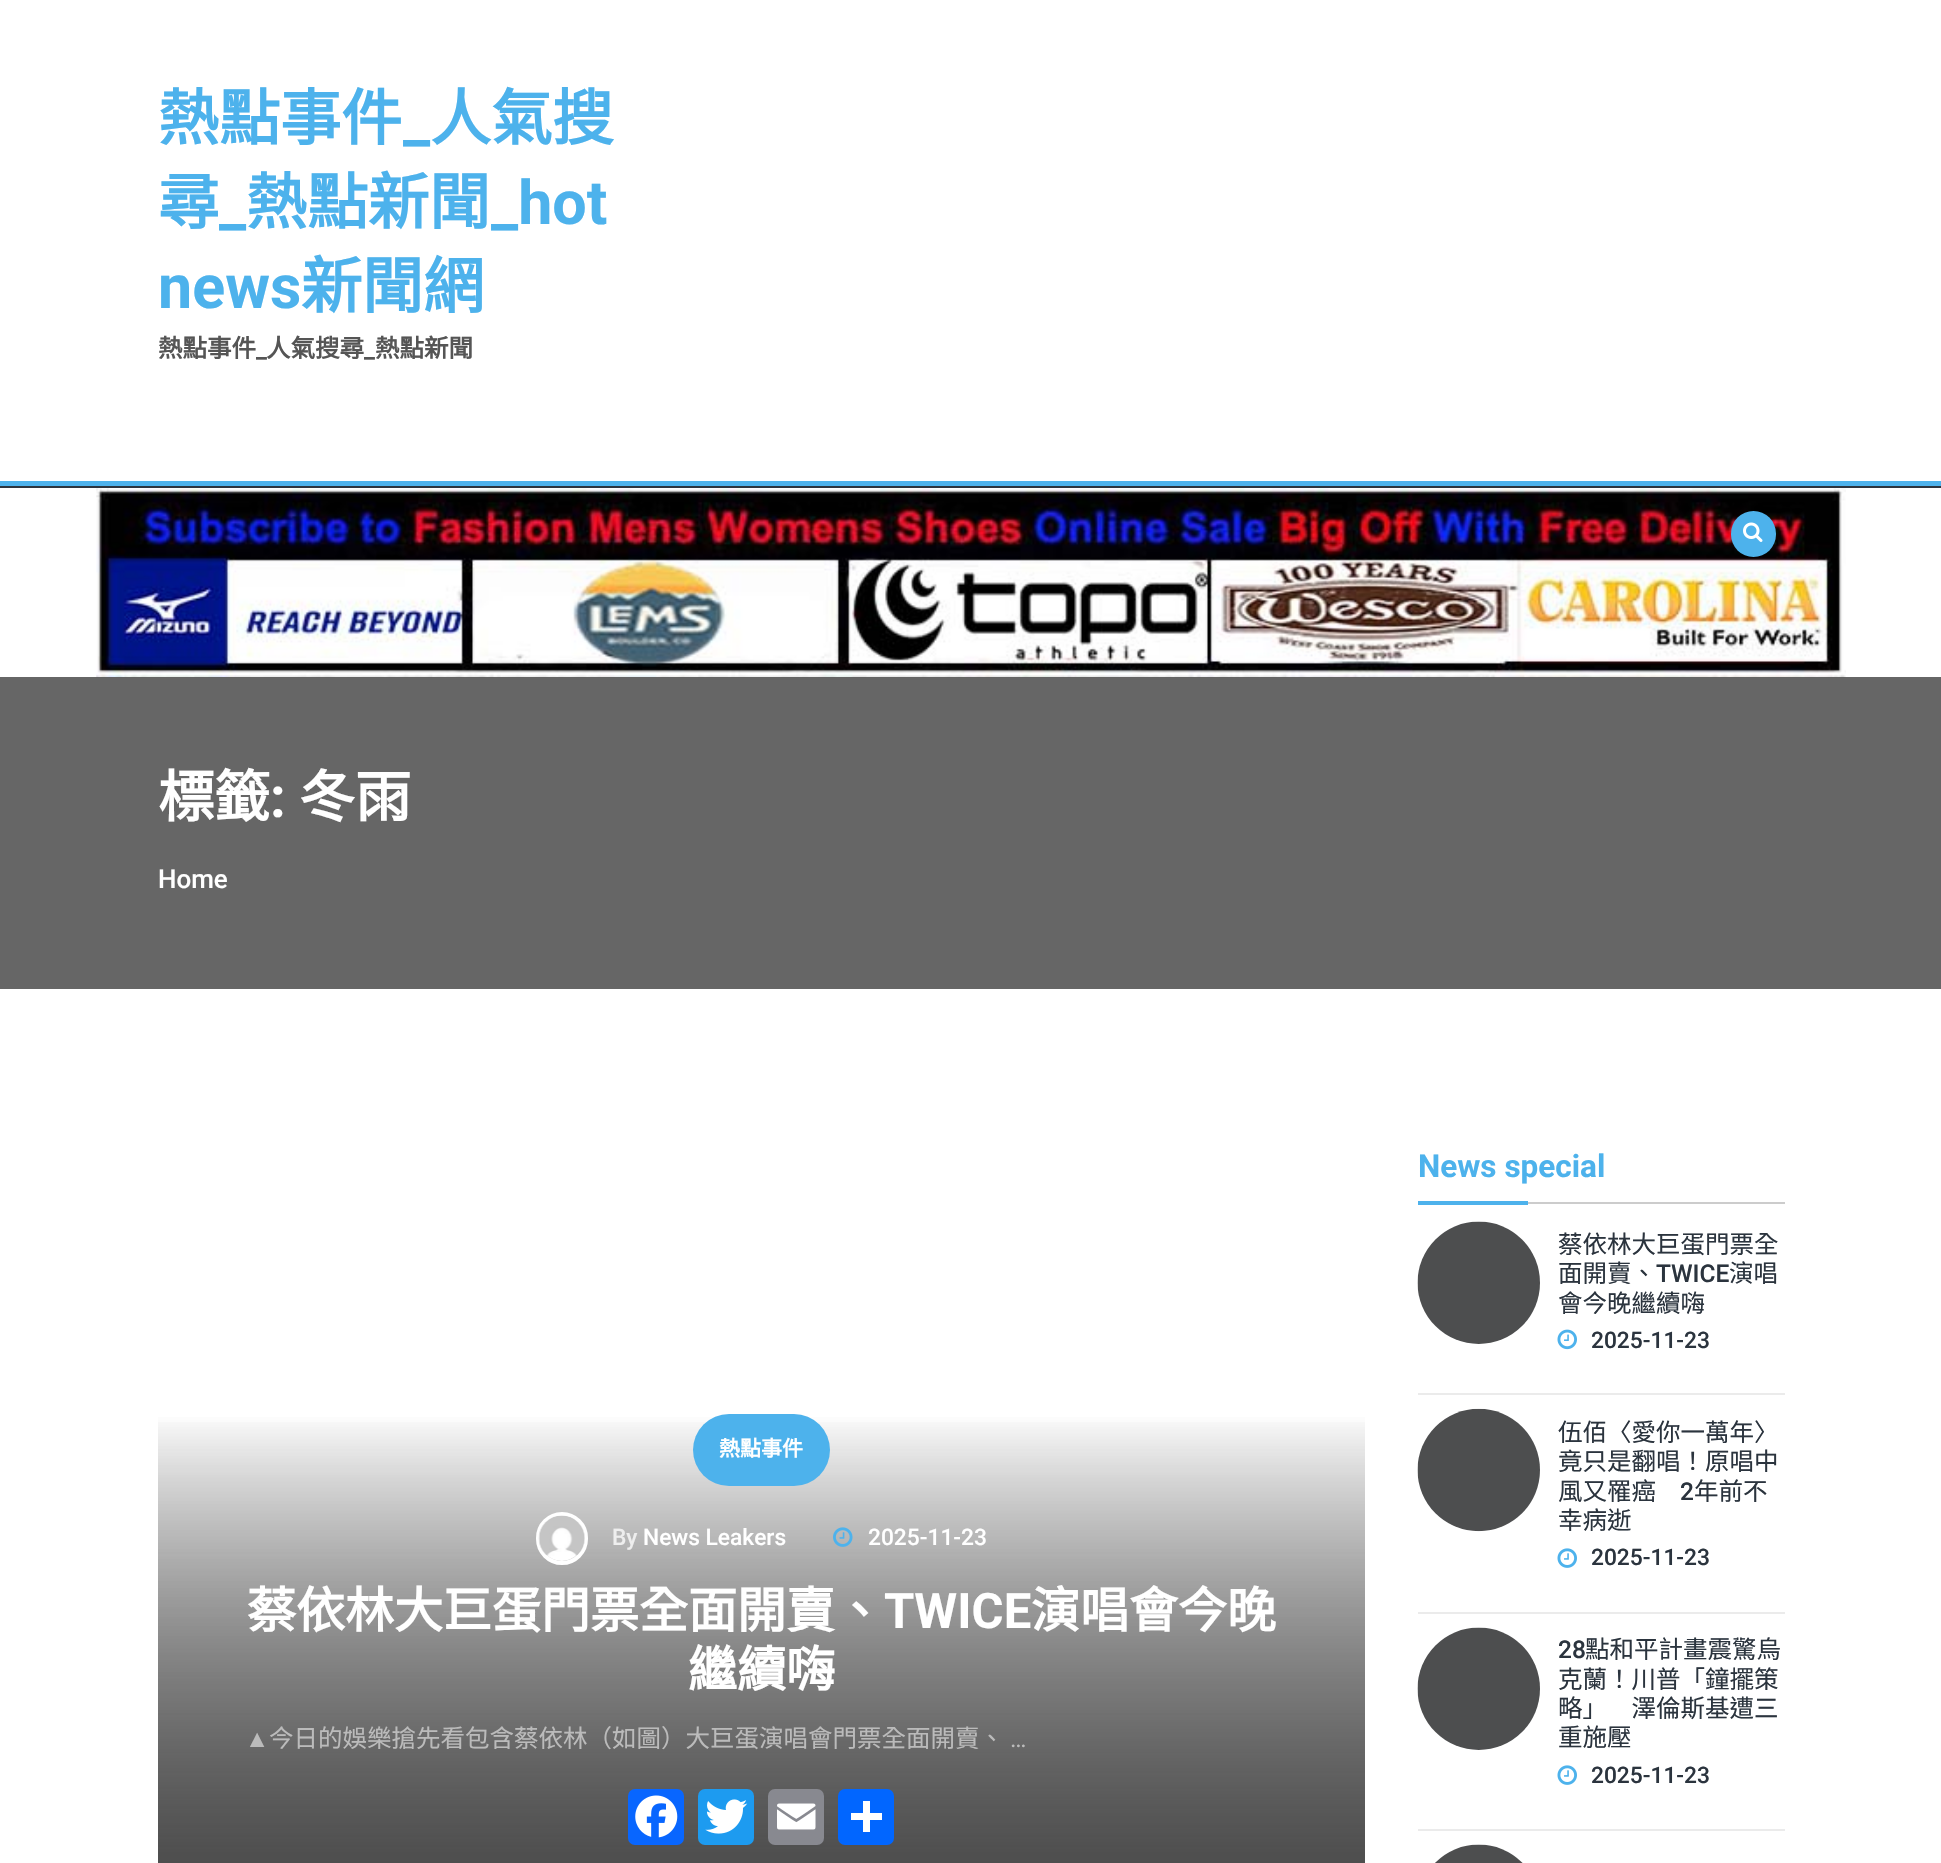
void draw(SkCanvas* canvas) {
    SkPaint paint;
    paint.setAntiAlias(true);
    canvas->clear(0xFFFFFFFF);
    SkFont font1(fontMgr->matchFamilyStyle("Noto Sans CJK HK", SkFontStyle::Bold()), 61);
    font1.setSubpixel(true);
    paint.setColor(0xFF4DB2EC);
    canvas->drawString("熱點事件", 158, 140, font1, paint);
    SkFont font2(fontMgr->matchFamilyStyle("Roboto", SkFontStyle::Bold()), 61);
    font2.setSubpixel(true);
    canvas->drawString("_", 403, 140, font2, paint);
    canvas->drawString("人氣搜", 430, 140, font1, paint);
    canvas->drawString("尋", 158, 224, font1, paint);
    canvas->drawString("_", 219, 224, font2, paint);
    canvas->drawString("熱點新聞", 246, 224, font1, paint);
    canvas->drawString("_hot", 491, 224, font2, paint);
    canvas->drawString("news", 158, 308, font2, paint);
    canvas->drawString("新聞網", 301, 308, font1, paint);
    SkFont font3(fontMgr->matchFamilyStyle("Noto Sans CJK HK", SkFontStyle::Bold()), 24.5f);
    font3.setSubpixel(true);
    paint.setColor(0xFF555555);
    canvas->drawString("熱點事件", 158, 357, font3, paint);
    SkFont font4(fontMgr->matchFamilyStyle("Roboto", SkFontStyle::Bold()), 24.5f);
    font4.setSubpixel(true);
    canvas->drawString("_", 256, 357, font4, paint);
    canvas->drawString("人氣搜尋", 266, 357, font3, paint);
    canvas->drawString("_", 364, 357, font4, paint);
    canvas->drawString("熱點新聞", 375, 357, font3, paint);
    paint.setColor(0xFF2B343E);
    canvas->drawRect(SkRect::MakeXYWH(0, 486, 1941, 2), paint);
    paint.setColor(0xFF4DB2EC);
    canvas->drawRect(SkRect::MakeXYWH(0, 481, 1941, 5), paint);
    canvas->drawImageRect(SkImages::DeferredFromEncodedData(SkData::MakeFromFileName("img2.png")), SkRect::MakeXYWH(96, 488, 1750, 190), SkSamplingOptions());
    canvas->drawRoundRect(SkRect::MakeXYWH(1731, 511, 45, 46), 22.5f, 22.5f, paint);
    canvas->drawImageRect(SkImages::DeferredFromEncodedData(SkData::MakeFromFileName("img1.png")), SkRect::MakeXYWH(1743, 522, 20, 20), SkSamplingOptions());
    paint.setColor(0x99000000);
    canvas->drawRect(SkRect::MakeXYWH(0, 677, 1941, 312), paint);
    SkFont font5(fontMgr->matchFamilyStyle("Noto Sans CJK HK", SkFontStyle::Bold()), 56);
    font5.setSubpixel(true);
    paint.setColor(0xFFFFFFFF);
    canvas->drawString("標籤", 158, 817, font5, paint);
    SkFont font6(fontMgr->matchFamilyStyle("Roboto", SkFontStyle::Bold()), 56);
    font6.setSubpixel(true);
    canvas->drawString(":", 270, 817, font6, paint);
    canvas->drawString("冬雨", 299, 817, font5, paint);
    SkFont font7(fontMgr->matchFamilyStyle("Roboto", SkFontStyle(500, SkFontStyle::kNormal_Width, SkFontStyle::kUpright_Slant)), 26);
    font7.setSubpixel(true);
    canvas->drawString("Home", 158, 888, font7, paint);
    {
        const SkColor colors[] = {0xFFFFFFFF, 0xFF414141};
        const float stops[] = {0, 1};
        const SkPoint ends[] = {{761, 1409}, {761, 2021}};
        paint.setShader(SkGradientShader::MakeLinear(ends, colors, stops, 2, SkTileMode::kClamp));
        paint.setAlpha(255);
    }
    canvas->drawRect(SkRect::MakeXYWH(158, 1417, 1207, 446), paint);
    {
        const SkColor colors[] = {0x00414141, 0xFF414141};
        const float stops[] = {0, 1};
        const SkPoint ends[] = {{761, 1409}, {761, 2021}};
        paint.setShader(SkGradientShader::MakeLinear(ends, colors, stops, 2, SkTileMode::kClamp));
        paint.setAlpha(255);
    }
    canvas->drawRect(SkRect::MakeXYWH(158, 1422, 1207, 441), paint);
    paint.setShader(nullptr);
    paint.setColor(0xFF4DB2EC);
    canvas->drawRoundRect(SkRect::MakeXYWH(693, 1414, 137, 72), 36, 36, paint);
    SkFont font8(fontMgr->matchFamilyStyle("Noto Sans CJK HK", SkFontStyle::Bold()), 21);
    font8.setSubpixel(true);
    paint.setColor(0xFFFFFFFF);
    canvas->drawString("熱點事件", 719, 1456, font8, paint);
    paint.setStyle(SkPaint::kStroke_Style);
    paint.setStrokeWidth(4);
    canvas->drawRoundRect(SkRect::MakeXYWH(538, 1514, 48, 49), 24, 24, paint);
    canvas->drawImageRect(SkImages::DeferredFromEncodedData(SkData::MakeFromFileName("img3.png")), SkRect::MakeXYWH(538, 1515, 47, 46), SkSamplingOptions());
    SkFont font9(fontMgr->matchFamilyStyle("Roboto", SkFontStyle(500, SkFontStyle::kNormal_Width, SkFontStyle::kUpright_Slant)), 22.75f);
    font9.setSubpixel(true);
    paint.setStyle(SkPaint::kFill_Style);
    paint.setColor(0xFFEEEEEE);
    canvas->drawString("By", 612, 1545, font9, paint);
    paint.setColor(0xFFFFFFFF);
    canvas->drawString("News Leakers", 643, 1545, font9, paint);
    canvas->drawImageRect(SkImages::DeferredFromEncodedData(SkData::MakeFromFileName("img4.png")), SkRect::MakeXYWH(833, 1527, 20, 20), SkSamplingOptions());
    canvas->drawString("2025-11-23", 868, 1545, font9, paint);
    SkFont font10(fontMgr->matchFamilyStyle("Noto Sans CJK HK", SkFontStyle::Bold()), 49);
    font10.setSubpixel(true);
    canvas->drawString("蔡依林大巨蛋門票全面開賣、", 247, 1628, font10, paint);
    SkFont font11(fontMgr->matchFamilyStyle("Roboto", SkFontStyle::Bold()), 49);
    font11.setSubpixel(true);
    canvas->drawString("TWICE", 884, 1628, font11, paint);
    canvas->drawString("演唱會今晚", 1031, 1628, font10, paint);
    canvas->drawString("繼續嗨", 688, 1687, font10, paint);
    SkFont font12(fontMgr->matchFamilyStyle("Liberation Sans", SkFontStyle::Normal()), 24.5f);
    font12.setSubpixel(true);
    paint.setColor(0xFFBBBBBB);
    canvas->drawString("▲", 245, 1747, font12, paint);
    SkFont font13(fontMgr->matchFamilyStyle("Noto Sans CJK HK", SkFontStyle::Normal()), 24.5f);
    font13.setSubpixel(true);
    canvas->drawString("今日的娛樂搶先看包含蔡依林（如圖）大巨蛋演唱會門票全面開賣、", 269, 1747, font13, paint);
    SkFont font14(fontMgr->matchFamilyStyle("Roboto", SkFontStyle::Normal()), 24.5f);
    font14.setSubpixel(true);
    canvas->drawString("…", 1010, 1747, font14, paint);
    paint.setColor(0xFF0866FF);
    canvas->drawRoundRect(SkRect::MakeXYWH(628, 1789, 56, 56), 7, 7, paint);
    canvas->drawImageRect(SkImages::DeferredFromEncodedData(SkData::MakeFromFileName("img5.png")), SkRect::MakeXYWH(635, 1795, 43, 43), SkSamplingOptions());
    paint.setColor(0xFF1D9BF0);
    canvas->drawRoundRect(SkRect::MakeXYWH(698, 1789, 56, 56), 7, 7, paint);
    canvas->drawImageRect(SkImages::DeferredFromEncodedData(SkData::MakeFromFileName("img6.png")), SkRect::MakeXYWH(705, 1799, 43, 35), SkSamplingOptions());
    paint.setColor(0xFF888990);
    canvas->drawRoundRect(SkRect::MakeXYWH(768, 1789, 56, 56), 7, 7, paint);
    canvas->drawImageRect(SkImages::DeferredFromEncodedData(SkData::MakeFromFileName("img7.png")), SkRect::MakeXYWH(777, 1803, 39, 27), SkSamplingOptions());
    paint.setColor(0xFF0166FF);
    canvas->drawRoundRect(SkRect::MakeXYWH(838, 1789, 56, 56), 7, 7, paint);
    paint.setColor(0xFFFFFFFF);
    canvas->drawRect(SkRect::MakeXYWH(863, 1801, 7, 31), paint);
    canvas->drawRect(SkRect::MakeXYWH(851, 1813, 31, 7), paint);
    paint.setColor(0xFFCCCCCC);
    canvas->drawRect(SkRect::MakeXYWH(1528, 1202, 257, 2), paint);
    SkFont font15(fontMgr->matchFamilyStyle("Roboto", SkFontStyle::Bold()), 31.5f);
    font15.setSubpixel(true);
    paint.setColor(0xFF4DB2EC);
    canvas->drawString("News special", 1418, 1177, font15, paint);
    canvas->drawRect(SkRect::MakeXYWH(1418, 1201, 110, 4), paint);
    paint.setColor(0xFFEBEBEB);
    canvas->drawRect(SkRect::MakeXYWH(1418, 1393, 367, 2), paint);
    canvas->drawImageRect(SkImages::DeferredFromEncodedData(SkData::MakeFromFileName("img8.png")), SkRect::MakeXYWH(1417, 1221, 123, 123), SkSamplingOptions());
    paint.setColor(0xFF2B343E);
    canvas->drawString("蔡依林大巨蛋門票全", 1558, 1253, font13, paint);
    canvas->drawString("面開賣、", 1558, 1282, font13, paint);
    SkFont font16(fontMgr->matchFamilyStyle("Roboto", SkFontStyle(500, SkFontStyle::kNormal_Width, SkFontStyle::kUpright_Slant)), 24.5f);
    font16.setSubpixel(true);
    canvas->drawString("TWICE", 1656, 1282, font16, paint);
    canvas->drawString("演唱", 1729, 1282, font13, paint);
    canvas->drawString("會今晚繼續嗨", 1558, 1312, font13, paint);
    canvas->drawImageRect(SkImages::DeferredFromEncodedData(SkData::MakeFromFileName("img9.png")), SkRect::MakeXYWH(1557, 1329, 20, 21), SkSamplingOptions());
    canvas->drawString("2025-11-23", 1591, 1348, font9, paint);
    paint.setColor(0xFFEBEBEB);
    canvas->drawRect(SkRect::MakeXYWH(1418, 1612, 367, 2), paint);
    canvas->drawImageRect(SkImages::DeferredFromEncodedData(SkData::MakeFromFileName("img10.png")), SkRect::MakeXYWH(1417, 1408, 123, 124), SkSamplingOptions());
    paint.setColor(0xFF2B343E);
    canvas->drawString("伍佰〈愛你一萬年〉", 1558, 1441, font13, paint);
    canvas->drawString("竟只是翻唱！原唱中", 1558, 1470, font13, paint);
    canvas->drawString("風又罹癌", 1558, 1500, font13, paint);
    canvas->drawString("2", 1680, 1500, font16, paint);
    canvas->drawString("年前不", 1694, 1500, font13, paint);
    canvas->drawString("幸病逝", 1558, 1529, font13, paint);
    canvas->drawImageRect(SkImages::DeferredFromEncodedData(SkData::MakeFromFileName("img11.png")), SkRect::MakeXYWH(1557, 1548, 20, 20), SkSamplingOptions());
    canvas->drawString("2025-11-23", 1591, 1565, font9, paint);
    paint.setColor(0xFFEBEBEB);
    canvas->drawRect(SkRect::MakeXYWH(1418, 1829, 367, 2), paint);
    canvas->drawImageRect(SkImages::DeferredFromEncodedData(SkData::MakeFromFileName("img12.png")), SkRect::MakeXYWH(1417, 1627, 123, 123), SkSamplingOptions());
    paint.setColor(0xFF2B343E);
    canvas->drawString("28", 1558, 1658, font16, paint);
    canvas->drawString("點和平計畫震驚烏", 1585, 1658, font13, paint);
    canvas->drawString("克蘭！川普「鐘擺策", 1558, 1688, font13, paint);
    canvas->drawString("略」　澤倫斯基遭三", 1558, 1717, font13, paint);
    canvas->drawString("重施壓", 1558, 1746, font13, paint);
    canvas->drawImageRect(SkImages::DeferredFromEncodedData(SkData::MakeFromFileName("img11.png")), SkRect::MakeXYWH(1557, 1765, 20, 20), SkSamplingOptions());
    canvas->drawString("2025-11-23", 1591, 1783, font9, paint);
    canvas->drawImageRect(SkImages::DeferredFromEncodedData(SkData::MakeFromFileName("img13.png")), SkRect::MakeXYWH(1435, 1844, 88, 19), SkSamplingOptions());
}
